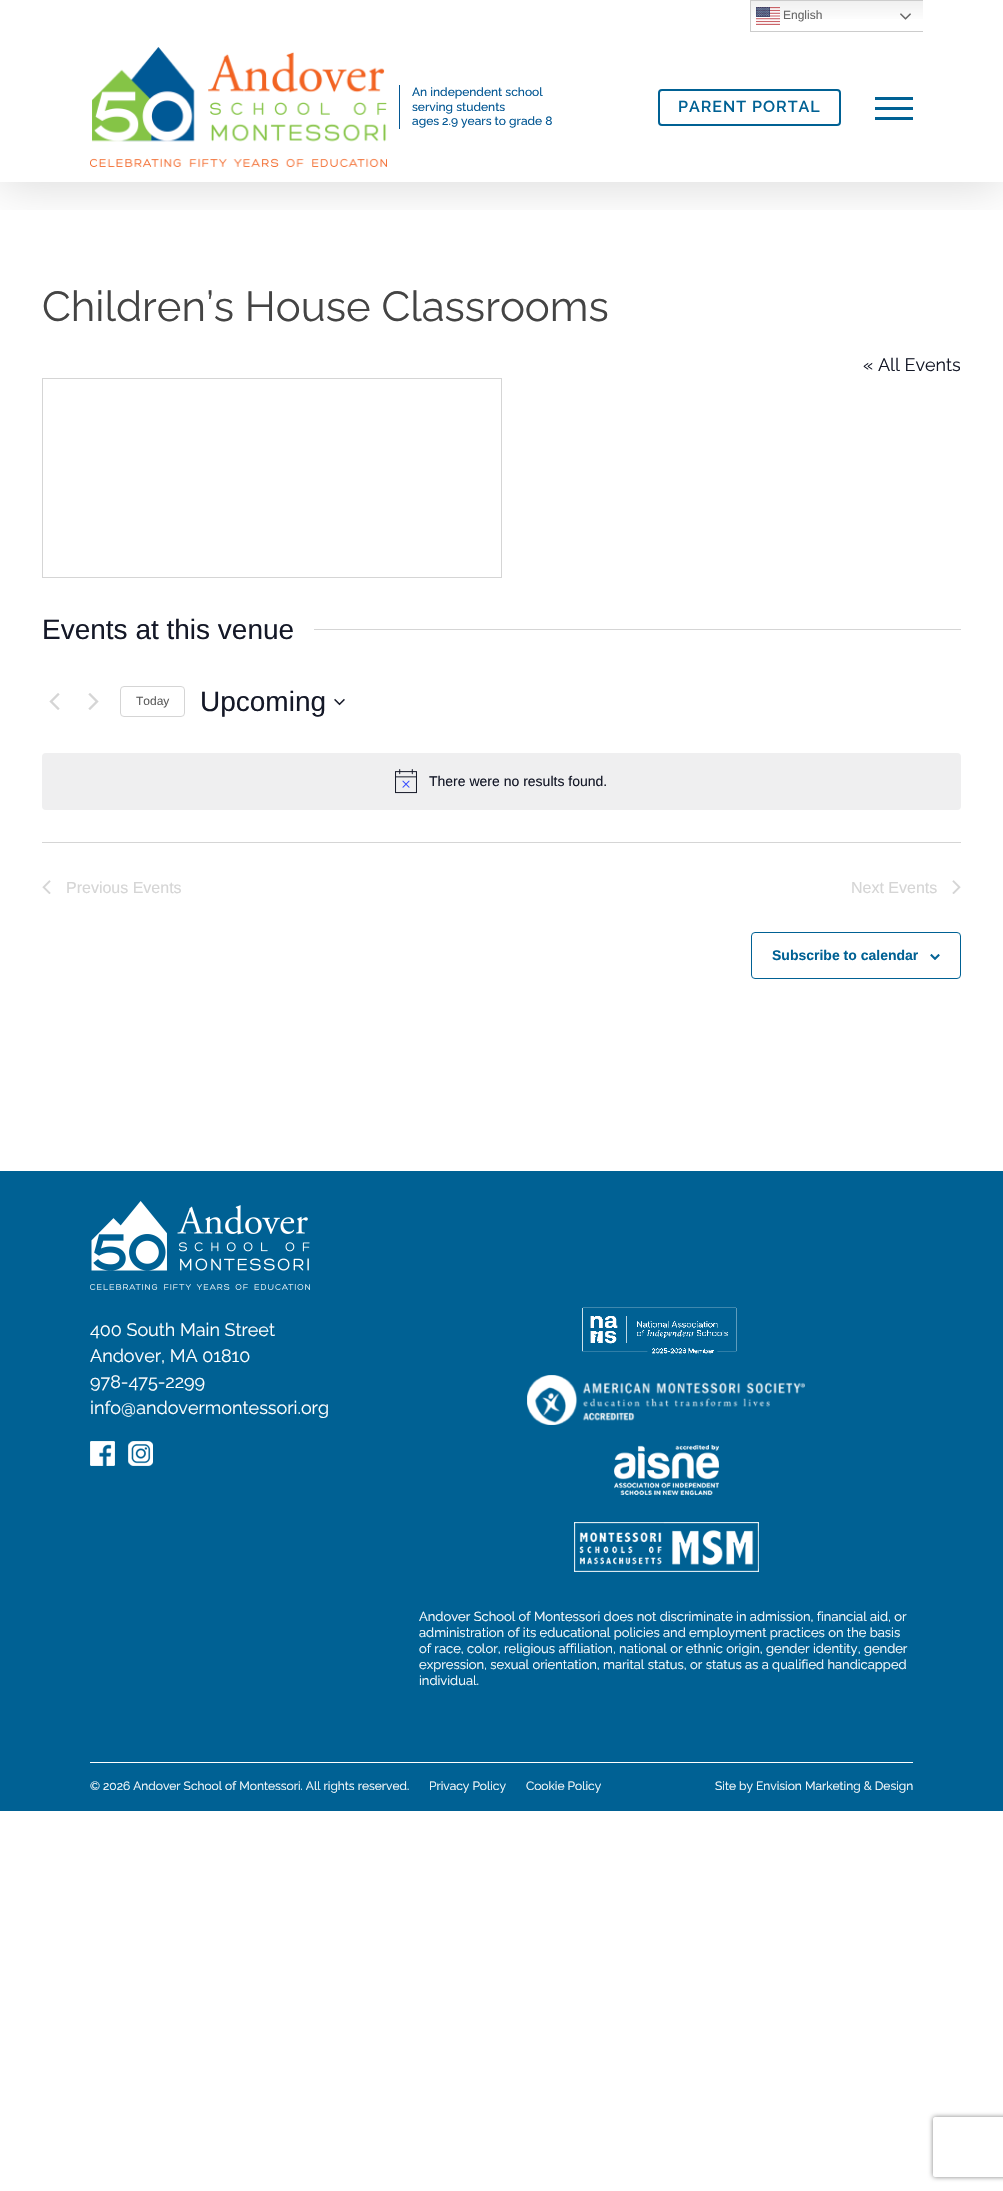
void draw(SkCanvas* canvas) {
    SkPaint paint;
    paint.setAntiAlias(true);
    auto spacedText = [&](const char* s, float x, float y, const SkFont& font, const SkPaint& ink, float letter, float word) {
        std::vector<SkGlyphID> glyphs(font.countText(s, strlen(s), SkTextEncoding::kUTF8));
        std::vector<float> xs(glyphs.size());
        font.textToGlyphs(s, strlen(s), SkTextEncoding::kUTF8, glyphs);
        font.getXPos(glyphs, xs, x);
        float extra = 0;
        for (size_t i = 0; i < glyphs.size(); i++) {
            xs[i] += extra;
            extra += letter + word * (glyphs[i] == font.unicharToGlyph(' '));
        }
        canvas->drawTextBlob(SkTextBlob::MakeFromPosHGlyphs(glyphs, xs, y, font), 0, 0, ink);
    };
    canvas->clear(0xFFFFFFFF);
    canvas->save();
    canvas->clipRect(SkRect::MakeXYWH(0, 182, 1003, 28));
    paint.setColor(0x26000000);
    paint.setMaskFilter(SkMaskFilter::MakeBlur(kNormal_SkBlurStyle, 22.5f));
    canvas->drawRect(SkRect::MakeXYWH(0, 3, 1003, 182), paint);
    paint.setMaskFilter(nullptr);
    canvas->restore();
    {
        const SkColor colors[] = {0xFFEFEFEF, 0xFFFFFFFF};
        const float stops[] = {0, 0.7f};
        const SkPoint ends[] = {{837, 0}, {837, 32}};
        paint.setShader(SkGradientShader::MakeLinear(ends, colors, stops, 2, SkTileMode::kClamp));
        paint.setAlpha(255);
    }
    canvas->drawRect(SkRect::MakeXYWH(751, 1, 172, 18), paint);
    canvas->save();
    canvas->clipRect(SkRect::MakeXYWH(750, 0, 173, 32));
    paint.setStyle(SkPaint::kStroke_Style);
    paint.setStrokeWidth(1);
    paint.setShader(nullptr);
    paint.setColor(0xFFCCCCCC);
    canvas->drawRect(SkRect::MakeXYWH(750.5f, 0.5f, 231, 31), paint);
    canvas->restore();
    canvas->drawImageRect(SkImages::DeferredFromEncodedData(SkData::MakeFromFileName("img1.png")), SkRect::MakeXYWH(756, 7, 24, 18), SkSamplingOptions());
    SkFont font1(fontMgr->matchFamilyStyle("Liberation Sans", SkFontStyle::Normal()), 12);
    font1.setSubpixel(true);
    paint.setStyle(SkPaint::kFill_Style);
    paint.setColor(0xFF666666);
    canvas->drawString("English", 783, 19, font1, paint);
    canvas->drawImageRect(SkImages::DeferredFromEncodedData(SkData::MakeFromFileName("img2.png")), SkRect::MakeXYWH(900, 13, 11, 7), SkSamplingOptions());
    canvas->drawImageRect(SkImages::DeferredFromEncodedData(SkData::MakeFromFileName("img3.png")), SkRect::MakeXYWH(90, 47, 297, 120), SkSamplingOptions());
    paint.setColor(0xFF045894);
    canvas->drawRect(SkRect::MakeXYWH(399, 85, 1, 44), paint);
    SkFont font2(fontMgr->matchFamilyStyle("Raleway", SkFontStyle(500, SkFontStyle::kNormal_Width, SkFontStyle::kUpright_Slant)), 12);
    font2.setSubpixel(true);
    canvas->drawString("An independent school", 412, 96, font2, paint);
    canvas->drawString("serving students", 412, 111, font2, paint);
    canvas->drawString("ages 2.9 years to grade 8", 412, 125, font2, paint);
    paint.setStyle(SkPaint::kStroke_Style);
    paint.setStrokeWidth(2);
    paint.setColor(0xFF006194);
    canvas->drawRoundRect(SkRect::MakeXYWH(659, 90, 181, 35), 3, 3, paint);
    SkFont font3(fontMgr->matchFamilyStyle("Raleway", SkFontStyle(600, SkFontStyle::kNormal_Width, SkFontStyle::kUpright_Slant)), 16);
    font3.setSubpixel(true);
    paint.setStyle(SkPaint::kFill_Style);
    spacedText("PARENT PORTAL", 678, 112, font3, paint, 1, 0);
    canvas->drawRect(SkRect::MakeXYWH(875, 107, 38, 3), paint);
    canvas->drawRect(SkRect::MakeXYWH(875, 97, 38, 3), paint);
    canvas->drawRect(SkRect::MakeXYWH(875, 117, 38, 3), paint);
    SkFont font4(fontMgr->matchFamilyStyle("Raleway", SkFontStyle::Normal()), 42);
    font4.setSubpixel(true);
    paint.setColor(0xFF444444);
    canvas->drawString("Children’s House Classrooms", 42, 321, font4, paint);
    SkFont font5(fontMgr->matchFamilyStyle("Raleway", SkFontStyle::Normal()), 18);
    font5.setSubpixel(true);
    paint.setColor(0xFF141827);
    canvas->drawString("« All Events", 863, 371, font5, paint);
    paint.setStyle(SkPaint::kStroke_Style);
    paint.setStrokeWidth(1);
    paint.setColor(0xFFD5D5D5);
    canvas->drawRect(SkRect::MakeXYWH(42.5f, 378.5f, 459, 199), paint);
    SkFont font6(fontMgr->matchFamilyStyle("Liberation Sans", SkFontStyle::Normal()), 28);
    font6.setSubpixel(true);
    paint.setStyle(SkPaint::kFill_Style);
    paint.setColor(0xFF141827);
    canvas->drawString("Events at this venue", 42, 639, font6, paint);
    paint.setColor(0xFFD5D5D5);
    canvas->drawRect(SkRect::MakeXYWH(314, 629, 647, 1), paint);
    canvas->drawImageRect(SkImages::DeferredFromEncodedData(SkData::MakeFromFileName("img4.png")), SkRect::MakeXYWH(49, 693, 11, 17), SkSamplingOptions());
    canvas->drawImageRect(SkImages::DeferredFromEncodedData(SkData::MakeFromFileName("img5.png")), SkRect::MakeXYWH(88, 693, 11, 17), SkSamplingOptions());
    paint.setStyle(SkPaint::kStroke_Style);
    canvas->drawRoundRect(SkRect::MakeXYWH(120.5f, 686.5f, 64, 30), 3.5f, 3.5f, paint);
    paint.setStyle(SkPaint::kFill_Style);
    paint.setColor(0xFF5D5D5D);
    canvas->drawString("Today", 136, 705, font1, paint);
    paint.setColor(0xFF141827);
    canvas->drawString("Upcoming", 200, 711, font6, paint);
    canvas->drawImageRect(SkImages::DeferredFromEncodedData(SkData::MakeFromFileName("img6.png")), SkRect::MakeXYWH(334, 698, 11, 8), SkSamplingOptions());
    paint.setColor(0xFFEFEFF0);
    canvas->drawRoundRect(SkRect::MakeXYWH(42, 753, 919, 57), 4, 4, paint);
    canvas->drawImageRect(SkImages::DeferredFromEncodedData(SkData::MakeFromFileName("img7.png")), SkRect::MakeXYWH(395, 769, 22, 25), SkSamplingOptions());
    SkFont font7(fontMgr->matchFamilyStyle("Liberation Sans", SkFontStyle::Normal()), 14);
    font7.setSubpixel(true);
    paint.setColor(0xFF141827);
    canvas->drawString("There were no results found.", 429, 786, font7, paint);
    paint.setColor(0xFFD5D5D5);
    canvas->drawRect(SkRect::MakeXYWH(42, 842, 919, 1), paint);
    canvas->drawImageRect(SkImages::DeferredFromEncodedData(SkData::MakeFromFileName("img8.png")), SkRect::MakeXYWH(42, 880, 9, 14), SkSamplingOptions());
    SkFont font8(fontMgr->matchFamilyStyle("Liberation Sans", SkFontStyle::Normal()), 16);
    font8.setSubpixel(true);
    canvas->drawString("Previous Events", 66, 893, font8, paint);
    canvas->drawString("Next Events", 851, 893, font8, paint);
    canvas->drawImageRect(SkImages::DeferredFromEncodedData(SkData::MakeFromFileName("img9.png")), SkRect::MakeXYWH(952, 880, 9, 14), SkSamplingOptions());
    paint.setStyle(SkPaint::kStroke_Style);
    paint.setColor(0xFF006194);
    canvas->drawRoundRect(SkRect::MakeXYWH(751.5f, 932.5f, 209, 46), 3.5f, 3.5f, paint);
    SkFont font9(fontMgr->matchFamilyStyle("Liberation Sans", SkFontStyle::Bold()), 14);
    font9.setSubpixel(true);
    paint.setStyle(SkPaint::kFill_Style);
    canvas->drawString("Subscribe to calendar", 772, 960, font9, paint);
    canvas->drawImageRect(SkImages::DeferredFromEncodedData(SkData::MakeFromFileName("img10.png")), SkRect::MakeXYWH(930, 954, 10, 6), SkSamplingOptions());
    canvas->drawRect(SkRect::MakeXYWH(0, 1171, 1003, 640), paint);
    canvas->drawImageRect(SkImages::DeferredFromEncodedData(SkData::MakeFromFileName("img11.png")), SkRect::MakeXYWH(90, 1201, 220, 89), SkSamplingOptions());
    paint.setColor(0xFFFFFFFF);
    canvas->drawString("400 South Main Street", 90, 1336, font5, paint);
    canvas->drawString("Andover, MA 01810", 90, 1362, font5, paint);
    canvas->drawString("978-475-2299", 90, 1388, font5, paint);
    canvas->drawString("info@andovermontessori.org", 90, 1414, font5, paint);
    canvas->drawImageRect(SkImages::DeferredFromEncodedData(SkData::MakeFromFileName("img12.png")), SkRect::MakeXYWH(90, 1441, 25, 25), SkSamplingOptions());
    canvas->drawImageRect(SkImages::DeferredFromEncodedData(SkData::MakeFromFileName("img13.png")), SkRect::MakeXYWH(128, 1441, 25, 25), SkSamplingOptions());
    canvas->drawImageRect(SkImages::DeferredFromEncodedData(SkData::MakeFromFileName("img14.png")), SkRect::MakeXYWH(582, 1307, 155, 47), SkSamplingOptions());
    canvas->drawImageRect(SkImages::DeferredFromEncodedData(SkData::MakeFromFileName("img15.png")), SkRect::MakeXYWH(527, 1375, 278, 50), SkSamplingOptions());
    canvas->drawImageRect(SkImages::DeferredFromEncodedData(SkData::MakeFromFileName("img16.png")), SkRect::MakeXYWH(614, 1445, 105, 50), SkSamplingOptions());
    canvas->drawImageRect(SkImages::DeferredFromEncodedData(SkData::MakeFromFileName("img17.png")), SkRect::MakeXYWH(574, 1522, 185, 50), SkSamplingOptions());
    SkFont font10(fontMgr->matchFamilyStyle("Raleway", SkFontStyle::Normal()), 13);
    font10.setSubpixel(true);
    canvas->drawString("Andover School of Montessori does not discriminate in admission, financial aid, or", 419, 1621, font10, paint);
    canvas->drawString("administration of its educational policies and employment practices on the basis", 419, 1637, font10, paint);
    canvas->drawString("of race, color, religious affiliation, national or ethnic origin, gender identity, gender", 419, 1653, font10, paint);
    canvas->drawString("expression, sexual orientation, marital status, or status as a qualified handicapped", 419, 1669, font10, paint);
    canvas->drawString("individual.", 419, 1685, font10, paint);
    canvas->drawRect(SkRect::MakeXYWH(90, 1762, 823, 1), paint);
    SkFont font11(fontMgr->matchFamilyStyle("Raleway", SkFontStyle::Normal()), 12);
    font11.setSubpixel(true);
    canvas->drawString("© 2026 Andover School of Montessori. All rights reserved.", 90, 1790, font11, paint);
    canvas->drawString("Privacy Policy", 429, 1790, font11, paint);
    canvas->drawString("Cookie Policy", 526, 1790, font11, paint);
    canvas->drawString("Site by Envision Marketing & Design", 715, 1790, font11, paint);
    canvas->save();
    canvas->clipPath(SkPathBuilder(SkPathFillType::kEvenOdd).moveTo(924, 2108).lineTo(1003, 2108).lineTo(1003, 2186).lineTo(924, 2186).close().moveTo(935, 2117).lineTo(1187, 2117).cubicTo(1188, 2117, 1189, 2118, 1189, 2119).lineTo(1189, 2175).cubicTo(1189, 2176, 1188, 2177, 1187, 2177).lineTo(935, 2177).cubicTo(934, 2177, 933, 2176, 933, 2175).lineTo(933, 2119).cubicTo(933, 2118, 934, 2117, 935, 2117).close().detach(), true);
    paint.setColor(0xFF808080);
    paint.setMaskFilter(SkMaskFilter::MakeBlur(kNormal_SkBlurStyle, 2.5f));
    canvas->drawRoundRect(SkRect::MakeXYWH(933, 2117, 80, 60), 2, 2, paint);
    paint.setMaskFilter(nullptr);
    canvas->restore();
}
